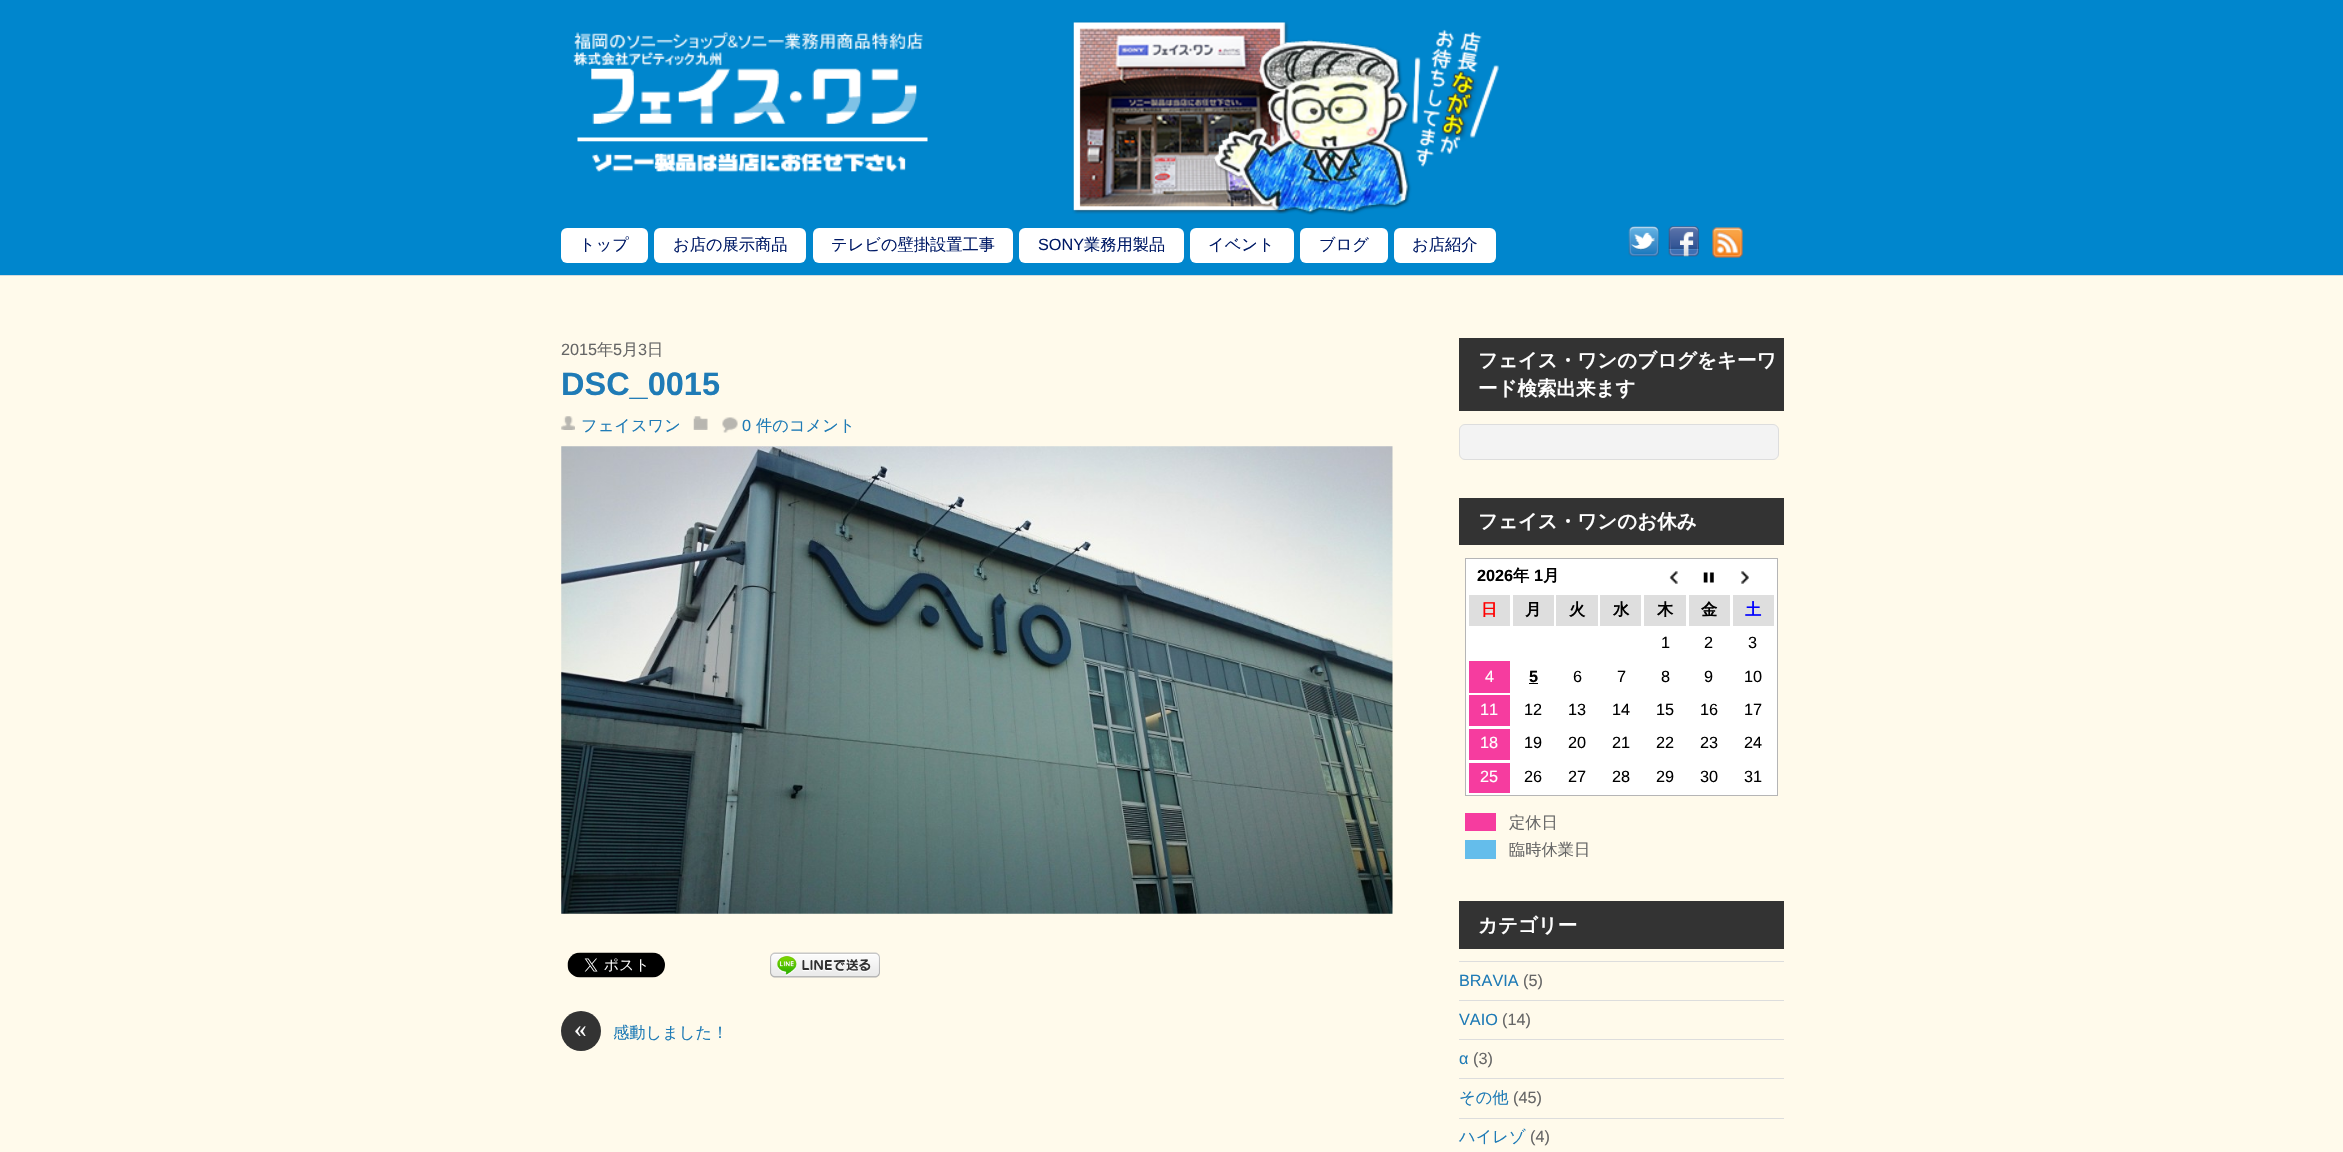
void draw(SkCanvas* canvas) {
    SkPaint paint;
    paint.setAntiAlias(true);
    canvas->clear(0xFFFFFAEB);
    paint.setColor(0xFF0086CD);
    canvas->drawRect(SkRect::MakeXYWH(0, 0, 2343, 275), paint);
    paint.setColor(0xFFD2DADD);
    canvas->drawRect(SkRect::MakeXYWH(0, 275, 2343, 1), paint);
    canvas->drawImageRect(SkImages::DeferredFromEncodedData(SkData::MakeFromFileName("img1.png")), SkRect::MakeXYWH(573, 32, 355, 140), SkSamplingOptions());
    canvas->drawImageRect(SkImages::DeferredFromEncodedData(SkData::MakeFromFileName("img2.png")), SkRect::MakeXYWH(1072, 21, 427, 194), SkSamplingOptions());
    paint.setColor(0xFFFFFFFF);
    canvas->drawRoundRect(SkRect::MakeXYWH(561, 228, 87, 35), 6, 6, paint);
    SkFont font1(fontMgr->matchFamilyStyle("WenQuanYi Zen Hei", SkFontStyle(500, SkFontStyle::kNormal_Width, SkFontStyle::kUpright_Slant)), 16.25f);
    font1.setSubpixel(true);
    paint.setColor(0xFF001A66);
    canvas->drawString("トップ", 579, 250, font1, paint);
    paint.setColor(0xFFFFFFFF);
    canvas->drawRoundRect(SkRect::MakeXYWH(654, 228, 152, 35), 6, 6, paint);
    paint.setColor(0xFF001A66);
    canvas->drawString("お店の展示商品", 673, 250, font1, paint);
    paint.setColor(0xFFFFFFFF);
    canvas->drawRoundRect(SkRect::MakeXYWH(813, 228, 200, 35), 6, 6, paint);
    paint.setColor(0xFF001A66);
    canvas->drawString("テレビの壁掛設置工事", 831, 250, font1, paint);
    paint.setColor(0xFFFFFFFF);
    canvas->drawRoundRect(SkRect::MakeXYWH(1019, 228, 165, 35), 6, 6, paint);
    SkFont font2(fontMgr->matchFamilyStyle("Liberation Sans", SkFontStyle::Normal()), 16.25f);
    font2.setSubpixel(true);
    paint.setColor(0xFF001A66);
    canvas->drawString("SONY", 1038, 250, font2, paint);
    canvas->drawString("業務用製品", 1084, 250, font1, paint);
    paint.setColor(0xFFFFFFFF);
    canvas->drawRoundRect(SkRect::MakeXYWH(1190, 228, 104, 35), 6, 6, paint);
    paint.setColor(0xFF001A66);
    canvas->drawString("イベント", 1208, 250, font1, paint);
    paint.setColor(0xFFFFFFFF);
    canvas->drawRoundRect(SkRect::MakeXYWH(1300, 228, 88, 35), 6, 6, paint);
    paint.setColor(0xFF001A66);
    canvas->drawString("ブログ", 1319, 250, font1, paint);
    paint.setColor(0xFFFFFFFF);
    canvas->drawRoundRect(SkRect::MakeXYWH(1394, 228, 102, 35), 6, 6, paint);
    paint.setColor(0xFF001A66);
    canvas->drawString("お店紹介", 1412, 250, font1, paint);
    canvas->drawImageRect(SkImages::DeferredFromEncodedData(SkData::MakeFromFileName("img3.png")), SkRect::MakeXYWH(1628, 226, 31, 31), SkSamplingOptions());
    canvas->drawImageRect(SkImages::DeferredFromEncodedData(SkData::MakeFromFileName("img4.png")), SkRect::MakeXYWH(1668, 226, 31, 31), SkSamplingOptions());
    canvas->drawImageRect(SkImages::DeferredFromEncodedData(SkData::MakeFromFileName("img5.png")), SkRect::MakeXYWH(1712, 227, 31, 31), SkSamplingOptions());
    paint.setColor(0xFF666666);
    canvas->drawString("2015", 561, 355, font2, paint);
    canvas->drawString("年", 597, 355, font1, paint);
    canvas->drawString("5", 613, 355, font2, paint);
    canvas->drawString("月", 622, 355, font1, paint);
    canvas->drawString("3", 638, 355, font2, paint);
    canvas->drawString("日", 647, 355, font1, paint);
    SkFont font3(fontMgr->matchFamilyStyle("Liberation Sans", SkFontStyle::Bold()), 32.5f);
    font3.setSubpixel(true);
    paint.setColor(0xFF1F7BB6);
    canvas->drawString("DSC_0015", 561, 395, font3, paint);
    canvas->drawImageRect(SkImages::DeferredFromEncodedData(SkData::MakeFromFileName("img6.png")), SkRect::MakeXYWH(561, 416, 14, 14), SkSamplingOptions());
    canvas->drawString("フェイスワン", 581, 431, font1, paint);
    canvas->drawImageRect(SkImages::DeferredFromEncodedData(SkData::MakeFromFileName("img7.png")), SkRect::MakeXYWH(693, 416, 15, 14), SkSamplingOptions());
    canvas->drawImageRect(SkImages::DeferredFromEncodedData(SkData::MakeFromFileName("img8.png")), SkRect::MakeXYWH(722, 417, 16, 16), SkSamplingOptions());
    canvas->drawString("0", 742, 431, font2, paint);
    canvas->drawString("件のコメント", 756, 431, font1, paint);
    canvas->drawImageRect(SkImages::DeferredFromEncodedData(SkData::MakeFromFileName("img9.png")), SkRect::MakeXYWH(561, 446, 832, 468), SkSamplingOptions());
    canvas->drawImageRect(SkImages::DeferredFromEncodedData(SkData::MakeFromFileName("img10.png")), SkRect::MakeXYWH(567, 952, 98, 26), SkSamplingOptions());
    canvas->drawImageRect(SkImages::DeferredFromEncodedData(SkData::MakeFromFileName("img11.png")), SkRect::MakeXYWH(770, 952, 110, 26), SkSamplingOptions());
    paint.setColor(0xFF333333);
    canvas->drawCircle(581, 1031, 20, paint);
    SkFont font4(fontMgr->matchFamilyStyle("Liberation Serif", SkFontStyle::Normal()), 25);
    font4.setSubpixel(true);
    paint.setColor(0xFFFFFFFF);
    canvas->drawString("«", 574, 1037, font4, paint);
    paint.setColor(0xFF1F7BB6);
    canvas->drawString("感動しました！", 613, 1038, font1, paint);
    paint.setColor(0xFF333333);
    canvas->drawRect(SkRect::MakeXYWH(1459, 338, 325, 73), paint);
    SkFont font5(fontMgr->matchFamilyStyle("WenQuanYi Zen Hei", SkFontStyle::Bold()), 19.5f);
    font5.setSubpixel(true);
    paint.setColor(0xFFFFFFFF);
    canvas->drawString("フェイス・ワンのブログをキーワ", 1478, 367, font5, paint);
    canvas->drawString("ード検索出来ます", 1478, 395, font5, paint);
    paint.setColor(0xFFF3F3F3);
    canvas->drawRoundRect(SkRect::MakeXYWH(1459.5f, 424.5f, 319, 35), 5.5f, 5.5f, paint);
    paint.setStyle(SkPaint::kStroke_Style);
    paint.setStrokeWidth(1);
    paint.setColor(0xFFDDDDDD);
    canvas->drawRoundRect(SkRect::MakeXYWH(1459.5f, 424.5f, 319, 35), 5.5f, 5.5f, paint);
    paint.setStyle(SkPaint::kFill_Style);
    paint.setColor(0xFF333333);
    canvas->drawRect(SkRect::MakeXYWH(1459, 498, 325, 47), paint);
    paint.setColor(0xFFFFFFFF);
    canvas->drawString("フェイス・ワンのお休み", 1478, 528, font5, paint);
    canvas->drawRect(SkRect::MakeXYWH(1465.5f, 558.5f, 312, 237), paint);
    paint.setStyle(SkPaint::kStroke_Style);
    paint.setColor(0xFFB5B5B6);
    canvas->drawRect(SkRect::MakeXYWH(1465.5f, 558.5f, 312, 237), paint);
    SkFont font6(fontMgr->matchFamilyStyle("Liberation Sans", SkFontStyle::Bold()), 16.25f);
    font6.setSubpixel(true);
    paint.setStyle(SkPaint::kFill_Style);
    paint.setColor(0xFF000000);
    canvas->drawString("2026", 1477, 581, font6, paint);
    SkFont font7(fontMgr->matchFamilyStyle("WenQuanYi Zen Hei", SkFontStyle::Bold()), 16.25f);
    font7.setSubpixel(true);
    canvas->drawString("年", 1513, 581, font7, paint);
    canvas->drawString("1", 1534, 581, font6, paint);
    canvas->drawString("月", 1543, 581, font7, paint);
    canvas->drawImageRect(SkImages::DeferredFromEncodedData(SkData::MakeFromFileName("img12.png")), SkRect::MakeXYWH(1669, 571, 9, 13), SkSamplingOptions());
    canvas->drawImageRect(SkImages::DeferredFromEncodedData(SkData::MakeFromFileName("img13.png")), SkRect::MakeXYWH(1703, 572, 11, 11), SkSamplingOptions());
    canvas->drawImageRect(SkImages::DeferredFromEncodedData(SkData::MakeFromFileName("img14.png")), SkRect::MakeXYWH(1741, 571, 8, 13), SkSamplingOptions());
    paint.setColor(0xFFDEDEDE);
    canvas->drawRect(SkRect::MakeXYWH(1469, 595, 41, 31), paint);
    paint.setColor(0xFFFF0000);
    canvas->drawString("日", 1481, 615, font7, paint);
    paint.setColor(0xFFDEDEDE);
    canvas->drawRect(SkRect::MakeXYWH(1513, 595, 41, 31), paint);
    paint.setColor(0xFF000000);
    canvas->drawString("月", 1525, 615, font7, paint);
    paint.setColor(0xFFDEDEDE);
    canvas->drawRect(SkRect::MakeXYWH(1556, 595, 42, 31), paint);
    paint.setColor(0xFF000000);
    canvas->drawString("火", 1569, 615, font7, paint);
    paint.setColor(0xFFDEDEDE);
    canvas->drawRect(SkRect::MakeXYWH(1600, 595, 41, 31), paint);
    paint.setColor(0xFF000000);
    canvas->drawString("水", 1613, 615, font7, paint);
    paint.setColor(0xFFDEDEDE);
    canvas->drawRect(SkRect::MakeXYWH(1644, 595, 42, 31), paint);
    paint.setColor(0xFF000000);
    canvas->drawString("木", 1657, 615, font7, paint);
    paint.setColor(0xFFDEDEDE);
    canvas->drawRect(SkRect::MakeXYWH(1689, 595, 41, 31), paint);
    paint.setColor(0xFF000000);
    canvas->drawString("金", 1701, 615, font7, paint);
    paint.setColor(0xFFDEDEDE);
    canvas->drawRect(SkRect::MakeXYWH(1733, 595, 41, 31), paint);
    paint.setColor(0xFF0000FF);
    canvas->drawString("土", 1745, 615, font7, paint);
    paint.setColor(0xFF000000);
    canvas->drawString("1", 1661, 648, font2, paint);
    canvas->drawString("2", 1704, 648, font2, paint);
    canvas->drawString("3", 1748, 648, font2, paint);
    paint.setColor(0xFFF63C9F);
    canvas->drawRect(SkRect::MakeXYWH(1469, 661, 41, 32), paint);
    paint.setColor(0xFFFFFFFF);
    canvas->drawString("4", 1485, 682, font2, paint);
    paint.setColor(0xFF000000);
    canvas->drawString("5", 1529, 682, font6, paint);
    canvas->drawRect(SkRect::MakeXYWH(1529, 683, 9, 1), paint);
    canvas->drawString("6", 1573, 682, font2, paint);
    canvas->drawString("7", 1617, 682, font2, paint);
    canvas->drawString("8", 1661, 682, font2, paint);
    canvas->drawString("9", 1704, 682, font2, paint);
    canvas->drawString("10", 1744, 682, font2, paint);
    paint.setColor(0xFFF63C9F);
    canvas->drawRect(SkRect::MakeXYWH(1469, 695, 41, 31), paint);
    paint.setColor(0xFFFFFFFF);
    canvas->drawString("11", 1480, 715, font2, paint);
    paint.setColor(0xFF000000);
    canvas->drawString("12", 1524, 715, font2, paint);
    canvas->drawString("13", 1568, 715, font2, paint);
    canvas->drawString("14", 1612, 715, font2, paint);
    canvas->drawString("15", 1656, 715, font2, paint);
    canvas->drawString("16", 1700, 715, font2, paint);
    canvas->drawString("17", 1744, 715, font2, paint);
    paint.setColor(0xFFF63C9F);
    canvas->drawRect(SkRect::MakeXYWH(1469, 729, 41, 31), paint);
    paint.setColor(0xFFFFFFFF);
    canvas->drawString("18", 1480, 748, font2, paint);
    paint.setColor(0xFF000000);
    canvas->drawString("19", 1524, 748, font2, paint);
    canvas->drawString("20", 1568, 748, font2, paint);
    canvas->drawString("21", 1612, 748, font2, paint);
    canvas->drawString("22", 1656, 748, font2, paint);
    canvas->drawString("23", 1700, 748, font2, paint);
    canvas->drawString("24", 1744, 748, font2, paint);
    paint.setColor(0xFFF63C9F);
    canvas->drawRect(SkRect::MakeXYWH(1469, 763, 41, 30), paint);
    paint.setColor(0xFFFFFFFF);
    canvas->drawString("25", 1480, 782, font2, paint);
    paint.setColor(0xFF000000);
    canvas->drawString("26", 1524, 782, font2, paint);
    canvas->drawString("27", 1568, 782, font2, paint);
    canvas->drawString("28", 1612, 782, font2, paint);
    canvas->drawString("29", 1656, 782, font2, paint);
    canvas->drawString("30", 1700, 782, font2, paint);
    canvas->drawString("31", 1744, 782, font2, paint);
    paint.setColor(0xFFF63C9F);
    canvas->drawRect(SkRect::MakeXYWH(1465, 813, 31, 18), paint);
    paint.setColor(0xFF666666);
    canvas->drawString("定休日", 1509, 828, font1, paint);
    paint.setColor(0xFF64BDEB);
    canvas->drawRect(SkRect::MakeXYWH(1465, 840, 31, 19), paint);
    paint.setColor(0xFF666666);
    canvas->drawString("臨時休業日", 1509, 855, font1, paint);
    paint.setColor(0xFF333333);
    canvas->drawRect(SkRect::MakeXYWH(1459, 901, 325, 48), paint);
    paint.setColor(0xFFFFFFFF);
    canvas->drawString("カテゴリー", 1478, 932, font5, paint);
    paint.setColor(0xFFDDDDDD);
    canvas->drawRect(SkRect::MakeXYWH(1459, 961, 325, 1), paint);
    paint.setColor(0xFF1F7BB6);
    canvas->drawString("BRAVIA", 1459, 986, font2, paint);
    paint.setColor(0xFF666666);
    canvas->drawString("(5)", 1523, 986, font2, paint);
    paint.setColor(0xFFDDDDDD);
    canvas->drawRect(SkRect::MakeXYWH(1459, 1000, 325, 1), paint);
    paint.setColor(0xFF1F7BB6);
    canvas->drawString("VAIO", 1459, 1025, font2, paint);
    paint.setColor(0xFF666666);
    canvas->drawString("(14)", 1502, 1025, font2, paint);
    paint.setColor(0xFFDDDDDD);
    canvas->drawRect(SkRect::MakeXYWH(1459, 1039, 325, 1), paint);
    paint.setColor(0xFF1F7BB6);
    canvas->drawString("α", 1459, 1064, font2, paint);
    paint.setColor(0xFF666666);
    canvas->drawString("(3)", 1473, 1064, font2, paint);
    paint.setColor(0xFFDDDDDD);
    canvas->drawRect(SkRect::MakeXYWH(1459, 1078, 325, 1), paint);
    paint.setColor(0xFF1F7BB6);
    canvas->drawString("その他", 1459, 1103, font1, paint);
    paint.setColor(0xFF666666);
    canvas->drawString("(45)", 1513, 1103, font2, paint);
    paint.setColor(0xFFDDDDDD);
    canvas->drawRect(SkRect::MakeXYWH(1459, 1118, 325, 1), paint);
    paint.setColor(0xFF1F7BB6);
    canvas->drawString("ハイレゾ", 1459, 1142, font1, paint);
    paint.setColor(0xFF666666);
    canvas->drawString("(4)", 1530, 1142, font2, paint);
}
